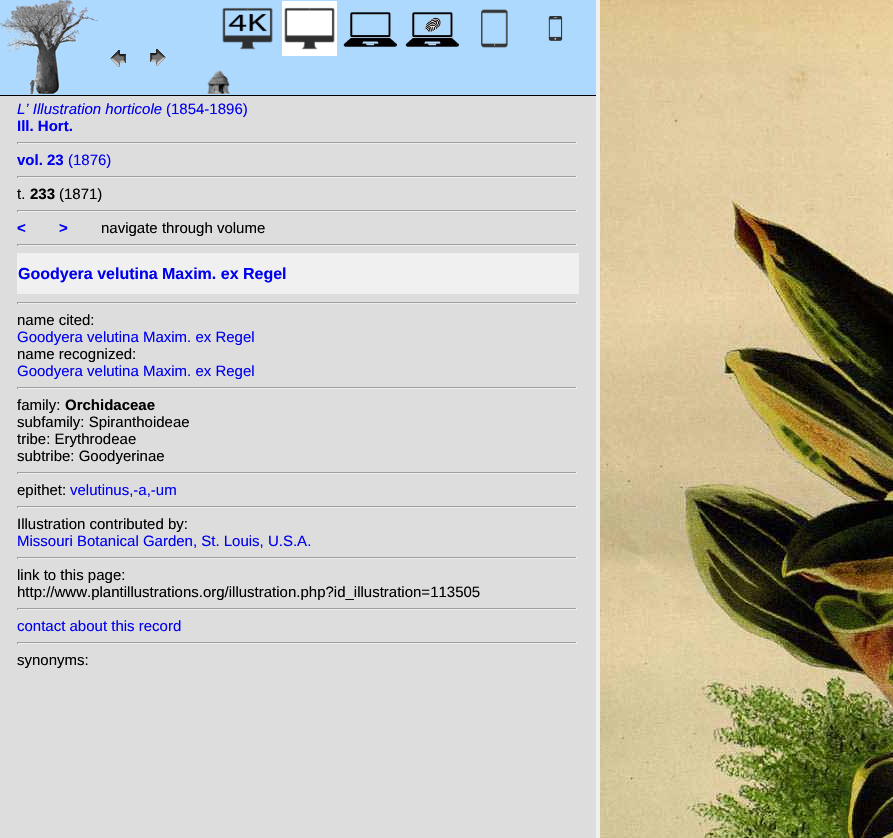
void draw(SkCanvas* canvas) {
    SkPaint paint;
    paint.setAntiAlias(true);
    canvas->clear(0xFFF0F0F0);
    paint.setColor(0xFFDDDDDD);
    canvas->drawRect(SkRect::MakeXYWH(0, 96, 596, 742), paint);
    paint.setColor(0xFFADD9FE);
    canvas->drawRect(SkRect::MakeXYWH(0, 0, 596, 95), paint);
    paint.setColor(0xFF000000);
    canvas->drawRect(SkRect::MakeXYWH(0, 95, 596, 1), paint);
    canvas->drawImageRect(SkImages::DeferredFromEncodedData(SkData::MakeFromFileName("img1.png")), SkRect::MakeXYWH(0, 0, 100, 94), SkSamplingOptions());
    canvas->drawImageRect(SkImages::DeferredFromEncodedData(SkData::MakeFromFileName("img2.png")), SkRect::MakeXYWH(110, 50, 16, 17), SkSamplingOptions());
    canvas->drawImageRect(SkImages::DeferredFromEncodedData(SkData::MakeFromFileName("img3.png")), SkRect::MakeXYWH(150, 49, 16, 17), SkSamplingOptions());
    canvas->drawImageRect(SkImages::DeferredFromEncodedData(SkData::MakeFromFileName("img4.png")), SkRect::MakeXYWH(222, 7, 51, 43), SkSamplingOptions());
    canvas->drawImageRect(SkImages::DeferredFromEncodedData(SkData::MakeFromFileName("img5.png")), SkRect::MakeXYWH(282, 1, 55, 55), SkSamplingOptions());
    canvas->drawImageRect(SkImages::DeferredFromEncodedData(SkData::MakeFromFileName("img6.png")), SkRect::MakeXYWH(343, 9, 55, 38), SkSamplingOptions());
    canvas->drawImageRect(SkImages::DeferredFromEncodedData(SkData::MakeFromFileName("img7.png")), SkRect::MakeXYWH(405, 9, 55, 38), SkSamplingOptions());
    canvas->drawImageRect(SkImages::DeferredFromEncodedData(SkData::MakeFromFileName("img8.png")), SkRect::MakeXYWH(481, 9, 27, 39), SkSamplingOptions());
    canvas->drawImageRect(SkImages::DeferredFromEncodedData(SkData::MakeFromFileName("img9.png")), SkRect::MakeXYWH(548, 15, 15, 26), SkSamplingOptions());
    canvas->drawImageRect(SkImages::DeferredFromEncodedData(SkData::MakeFromFileName("img10.png")), SkRect::MakeXYWH(207, 70, 23, 24), SkSamplingOptions());
    SkFont font1(fontMgr->matchFamilyStyle("Liberation Sans", SkFontStyle::Italic()), 15);
    font1.setSubpixel(true);
    paint.setColor(0xFF0000EE);
    canvas->drawString("L’ Illustration horticole", 17, 114, font1, paint);
    SkFont font2(fontMgr->matchFamilyStyle("Liberation Sans", SkFontStyle::Normal()), 15);
    font2.setSubpixel(true);
    canvas->drawString("(1854-1896)", 166, 114, font2, paint);
    SkFont font3(fontMgr->matchFamilyStyle("Liberation Sans", SkFontStyle::Bold()), 15);
    font3.setSubpixel(true);
    canvas->drawString("Ill. Hort.", 17, 131, font3, paint);
    paint.setColor(0xFF9F9F9F);
    canvas->drawRect(SkRect::MakeXYWH(17, 142, 560, 1), paint);
    paint.setColor(0xFFEEEEEE);
    canvas->drawRect(SkRect::MakeXYWH(576, 142, 1, 2), paint);
    canvas->drawRect(SkRect::MakeXYWH(17, 143, 560, 1), paint);
    paint.setColor(0xFF9F9F9F);
    canvas->drawRect(SkRect::MakeXYWH(17, 142, 1, 2), paint);
    paint.setColor(0xFF0000EE);
    canvas->drawString("vol. 23", 17, 165, font3, paint);
    canvas->drawString("(1876)", 68, 165, font2, paint);
    paint.setColor(0xFF9F9F9F);
    canvas->drawRect(SkRect::MakeXYWH(17, 176, 560, 1), paint);
    paint.setColor(0xFFEEEEEE);
    canvas->drawRect(SkRect::MakeXYWH(576, 176, 1, 2), paint);
    canvas->drawRect(SkRect::MakeXYWH(17, 177, 560, 1), paint);
    paint.setColor(0xFF9F9F9F);
    canvas->drawRect(SkRect::MakeXYWH(17, 176, 1, 2), paint);
    paint.setColor(0xFF000000);
    canvas->drawString("t.", 17, 199, font2, paint);
    canvas->drawString("233", 30, 199, font3, paint);
    canvas->drawString("(1871)", 59, 199, font2, paint);
    paint.setColor(0xFF9F9F9F);
    canvas->drawRect(SkRect::MakeXYWH(17, 210, 560, 1), paint);
    paint.setColor(0xFFEEEEEE);
    canvas->drawRect(SkRect::MakeXYWH(576, 210, 1, 2), paint);
    canvas->drawRect(SkRect::MakeXYWH(17, 211, 560, 1), paint);
    paint.setColor(0xFF9F9F9F);
    canvas->drawRect(SkRect::MakeXYWH(17, 210, 1, 2), paint);
    paint.setColor(0xFF0000EE);
    canvas->drawString("<", 17, 233, font3, paint);
    canvas->drawString(">", 59, 233, font3, paint);
    paint.setColor(0xFF000000);
    canvas->drawString("navigate through volume", 101, 233, font2, paint);
    paint.setColor(0xFF9F9F9F);
    canvas->drawRect(SkRect::MakeXYWH(17, 244, 560, 1), paint);
    paint.setColor(0xFFEEEEEE);
    canvas->drawRect(SkRect::MakeXYWH(576, 244, 1, 2), paint);
    canvas->drawRect(SkRect::MakeXYWH(17, 245, 560, 1), paint);
    paint.setColor(0xFF9F9F9F);
    canvas->drawRect(SkRect::MakeXYWH(17, 244, 1, 2), paint);
    paint.setColor(0xFFF0F0F0);
    canvas->drawRect(SkRect::MakeXYWH(17, 253, 562, 41), paint);
    SkFont font4(fontMgr->matchFamilyStyle("Liberation Sans", SkFontStyle::Bold()), 16);
    font4.setSubpixel(true);
    paint.setColor(0xFF0000EE);
    canvas->drawString("Goodyera velutina Maxim. ex Regel", 18, 279, font4, paint);
    paint.setColor(0xFF9F9F9F);
    canvas->drawRect(SkRect::MakeXYWH(17, 302, 560, 1), paint);
    paint.setColor(0xFFEEEEEE);
    canvas->drawRect(SkRect::MakeXYWH(576, 302, 1, 2), paint);
    canvas->drawRect(SkRect::MakeXYWH(17, 303, 560, 1), paint);
    paint.setColor(0xFF9F9F9F);
    canvas->drawRect(SkRect::MakeXYWH(17, 302, 1, 2), paint);
    paint.setColor(0xFF000000);
    canvas->drawString("name cited:", 17, 325, font2, paint);
    paint.setColor(0xFF0000EE);
    canvas->drawString("Goodyera velutina Maxim. ex Regel", 17, 342, font2, paint);
    paint.setColor(0xFF000000);
    canvas->drawString("name recognized:", 17, 359, font2, paint);
    paint.setColor(0xFF0000EE);
    canvas->drawString("Goodyera velutina Maxim. ex Regel", 17, 376, font2, paint);
    paint.setColor(0xFF9F9F9F);
    canvas->drawRect(SkRect::MakeXYWH(17, 387, 560, 1), paint);
    paint.setColor(0xFFEEEEEE);
    canvas->drawRect(SkRect::MakeXYWH(576, 387, 1, 2), paint);
    canvas->drawRect(SkRect::MakeXYWH(17, 388, 560, 1), paint);
    paint.setColor(0xFF9F9F9F);
    canvas->drawRect(SkRect::MakeXYWH(17, 387, 1, 2), paint);
    paint.setColor(0xFF000000);
    canvas->drawString("family:", 17, 410, font2, paint);
    canvas->drawString("Orchidaceae", 65, 410, font3, paint);
    canvas->drawString("subfamily: Spiranthoideae", 17, 427, font2, paint);
    canvas->drawString("tribe: Erythrodeae", 17, 444, font2, paint);
    canvas->drawString("subtribe: Goodyerinae", 17, 461, font2, paint);
    paint.setColor(0xFF9F9F9F);
    canvas->drawRect(SkRect::MakeXYWH(17, 472, 560, 1), paint);
    paint.setColor(0xFFEEEEEE);
    canvas->drawRect(SkRect::MakeXYWH(576, 472, 1, 2), paint);
    canvas->drawRect(SkRect::MakeXYWH(17, 473, 560, 1), paint);
    paint.setColor(0xFF9F9F9F);
    canvas->drawRect(SkRect::MakeXYWH(17, 472, 1, 2), paint);
    paint.setColor(0xFF000000);
    canvas->drawString("epithet:", 17, 495, font2, paint);
    paint.setColor(0xFF0000EE);
    canvas->drawString("velutinus,-a,-um", 70, 495, font2, paint);
    paint.setColor(0xFF9F9F9F);
    canvas->drawRect(SkRect::MakeXYWH(17, 506, 560, 1), paint);
    paint.setColor(0xFFEEEEEE);
    canvas->drawRect(SkRect::MakeXYWH(576, 506, 1, 2), paint);
    canvas->drawRect(SkRect::MakeXYWH(17, 507, 560, 1), paint);
    paint.setColor(0xFF9F9F9F);
    canvas->drawRect(SkRect::MakeXYWH(17, 506, 1, 2), paint);
    paint.setColor(0xFF000000);
    canvas->drawString("Illustration contributed by:", 17, 529, font2, paint);
    paint.setColor(0xFF0000EE);
    canvas->drawString("Missouri Botanical Garden, St. Louis, U.S.A.", 17, 546, font2, paint);
    paint.setColor(0xFF9F9F9F);
    canvas->drawRect(SkRect::MakeXYWH(17, 557, 560, 1), paint);
    paint.setColor(0xFFEEEEEE);
    canvas->drawRect(SkRect::MakeXYWH(576, 557, 1, 2), paint);
    canvas->drawRect(SkRect::MakeXYWH(17, 558, 560, 1), paint);
    paint.setColor(0xFF9F9F9F);
    canvas->drawRect(SkRect::MakeXYWH(17, 557, 1, 2), paint);
    paint.setColor(0xFF000000);
    canvas->drawString("link to this page:", 17, 580, font2, paint);
    canvas->drawString("http://www.plantillustrations.org/illustration.php?id_illustration=113505", 17, 597, font2, paint);
    paint.setColor(0xFF9F9F9F);
    canvas->drawRect(SkRect::MakeXYWH(17, 608, 560, 1), paint);
    paint.setColor(0xFFEEEEEE);
    canvas->drawRect(SkRect::MakeXYWH(576, 608, 1, 2), paint);
    canvas->drawRect(SkRect::MakeXYWH(17, 609, 560, 1), paint);
    paint.setColor(0xFF9F9F9F);
    canvas->drawRect(SkRect::MakeXYWH(17, 608, 1, 2), paint);
    paint.setColor(0xFF0000EE);
    canvas->drawString("contact about this record", 17, 631, font2, paint);
    paint.setColor(0xFF9F9F9F);
    canvas->drawRect(SkRect::MakeXYWH(17, 642, 560, 1), paint);
    paint.setColor(0xFFEEEEEE);
    canvas->drawRect(SkRect::MakeXYWH(576, 642, 1, 2), paint);
    canvas->drawRect(SkRect::MakeXYWH(17, 643, 560, 1), paint);
    paint.setColor(0xFF9F9F9F);
    canvas->drawRect(SkRect::MakeXYWH(17, 642, 1, 2), paint);
    paint.setColor(0xFF000000);
    canvas->drawString("synonyms:", 17, 665, font2, paint);
    canvas->drawImageRect(SkImages::DeferredFromEncodedData(SkData::MakeFromFileName("img11.png")), SkRect::MakeXYWH(600, 0, 293, 838), SkSamplingOptions());
}
